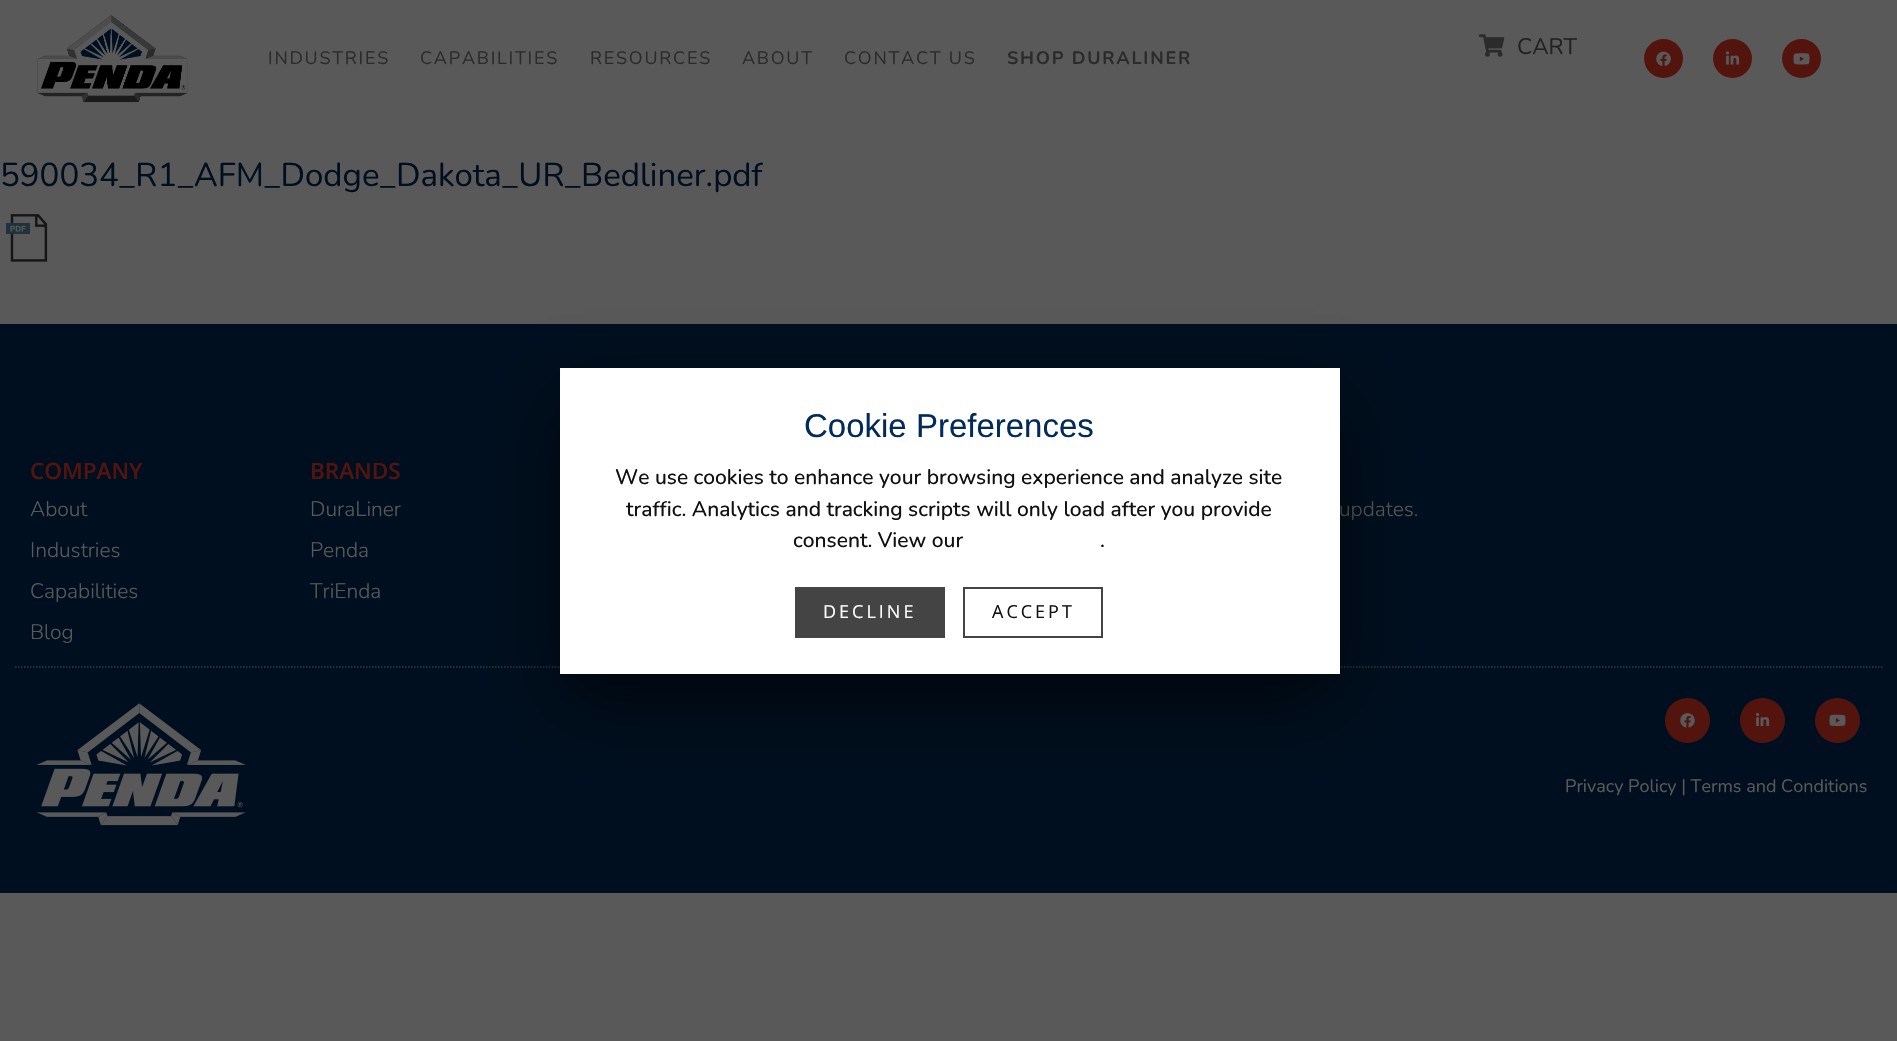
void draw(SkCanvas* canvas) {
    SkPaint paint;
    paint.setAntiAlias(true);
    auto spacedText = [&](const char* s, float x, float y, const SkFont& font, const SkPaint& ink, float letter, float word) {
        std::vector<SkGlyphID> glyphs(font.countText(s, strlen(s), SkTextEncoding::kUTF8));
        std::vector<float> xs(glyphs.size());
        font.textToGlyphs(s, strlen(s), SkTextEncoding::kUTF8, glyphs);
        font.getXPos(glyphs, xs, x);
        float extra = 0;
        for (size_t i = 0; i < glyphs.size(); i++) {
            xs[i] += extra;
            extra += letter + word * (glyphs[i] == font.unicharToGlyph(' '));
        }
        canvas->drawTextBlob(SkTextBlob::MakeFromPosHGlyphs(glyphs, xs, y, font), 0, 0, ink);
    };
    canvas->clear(0xFF595959);
    canvas->drawImageRect(SkImages::DeferredFromEncodedData(SkData::MakeFromFileName("img1.png")), SkRect::MakeXYWH(37, 15, 151, 88), SkSamplingOptions());
    SkFont font1(fontMgr->matchFamilyStyle("Nunito", SkFontStyle::Normal()), 18);
    font1.setSubpixel(true);
    paint.setColor(0xFF2B2B2B);
    spacedText("INDUSTRIES", 268, 64, font1, paint, 1.75f, 0);
    spacedText("CAPABILITIES", 420, 64, font1, paint, 1.75f, 0);
    spacedText("RESOURCES", 590, 64, font1, paint, 1.75f, 0);
    spacedText("ABOUT", 742, 64, font1, paint, 1.75f, 0);
    spacedText("CONTACT US", 844, 64, font1, paint, 1.75f, 0);
    SkFont font2(fontMgr->matchFamilyStyle("Nunito", SkFontStyle::Bold()), 18);
    font2.setSubpixel(true);
    spacedText("SHOP DURALINER", 1007, 64, font2, paint, 1.75f, 0);
    canvas->drawImageRect(SkImages::DeferredFromEncodedData(SkData::MakeFromFileName("img2.png")), SkRect::MakeXYWH(1479, 34, 26, 23), SkSamplingOptions());
    SkFont font3(fontMgr->matchFamilyStyle("Nunito", SkFontStyle::Normal()), 22.5f);
    font3.setSubpixel(true);
    paint.setColor(0xFF212121);
    canvas->drawString("CART", 1517, 54, font3, paint);
    paint.setColor(0xFF54140E);
    canvas->drawCircle(1663.5f, 58.5f, 19.5f, paint);
    canvas->drawImageRect(SkImages::DeferredFromEncodedData(SkData::MakeFromFileName("img3.png")), SkRect::MakeXYWH(1656, 51, 15, 15), SkSamplingOptions());
    canvas->drawCircle(1732.5f, 58.5f, 19.5f, paint);
    canvas->drawImageRect(SkImages::DeferredFromEncodedData(SkData::MakeFromFileName("img4.png")), SkRect::MakeXYWH(1726, 51, 14, 14), SkSamplingOptions());
    canvas->drawCircle(1801.5f, 58.5f, 19.5f, paint);
    canvas->drawImageRect(SkImages::DeferredFromEncodedData(SkData::MakeFromFileName("img5.png")), SkRect::MakeXYWH(1793, 53, 17, 12), SkSamplingOptions());
    SkFont font4(fontMgr->matchFamilyStyle("Nunito", SkFontStyle::Normal()), 33);
    font4.setSubpixel(true);
    paint.setColor(0xFF000F1F);
    canvas->drawString("590034_R1_AFM_Dodge_Dakota_UR_Bedliner.pdf", 0, 186, font4, paint);
    canvas->drawImageRect(SkImages::DeferredFromEncodedData(SkData::MakeFromFileName("img6.png")), SkRect::MakeXYWH(6, 214, 42, 48), SkSamplingOptions());
    canvas->drawRect(SkRect::MakeXYWH(0, 324, 1897, 569), paint);
    SkFont font5(fontMgr->matchFamilyStyle("Open Sans", SkFontStyle(600, SkFontStyle::kNormal_Width, SkFontStyle::kUpright_Slant)), 22.5f);
    font5.setSubpixel(true);
    paint.setColor(0xFF54140E);
    canvas->drawString("COMPANY", 30, 479, font5, paint);
    SkFont font6(fontMgr->matchFamilyStyle("Nunito", SkFontStyle(300, SkFontStyle::kNormal_Width, SkFontStyle::kUpright_Slant)), 21);
    font6.setSubpixel(true);
    paint.setColor(0xFF595959);
    canvas->drawString("About", 30, 516, font6, paint);
    canvas->drawString("Industries", 30, 557, font6, paint);
    canvas->drawString("Capabilities", 30, 598, font6, paint);
    canvas->drawString("Blog", 30, 639, font6, paint);
    paint.setColor(0xFF54140E);
    canvas->drawString("BRANDS", 310, 479, font5, paint);
    paint.setColor(0xFF595959);
    canvas->drawString("DuraLiner", 310, 516, font6, paint);
    canvas->drawString("Penda", 310, 557, font6, paint);
    canvas->drawString("TriEnda", 310, 598, font6, paint);
    canvas->drawString("updates.", 1339, 516, font6, paint);
    paint.setStyle(SkPaint::kStroke_Style);
    paint.setStrokeWidth(1.5f);
    paint.setColor(0xFF323940);
    paint.setPathEffect(SkDashPathEffect::Make({{1.5f, 1.5f}}, 0));
    canvas->drawPath(SkPathBuilder().moveTo(15, 667).lineTo(1882.5f, 667).detach(), paint);
    paint.setPathEffect(nullptr);
    canvas->drawImageRect(SkImages::DeferredFromEncodedData(SkData::MakeFromFileName("img7.png")), SkRect::MakeXYWH(36, 703, 210, 123), SkSamplingOptions());
    paint.setStyle(SkPaint::kFill_Style);
    paint.setColor(0xFF54140E);
    canvas->drawCircle(1687.5f, 720.5f, 22.5f, paint);
    canvas->drawImageRect(SkImages::DeferredFromEncodedData(SkData::MakeFromFileName("img8.png")), SkRect::MakeXYWH(1680, 713, 15, 15), SkSamplingOptions());
    canvas->drawCircle(1762.5f, 720.5f, 22.5f, paint);
    canvas->drawImageRect(SkImages::DeferredFromEncodedData(SkData::MakeFromFileName("img9.png")), SkRect::MakeXYWH(1756, 712, 14, 14), SkSamplingOptions());
    canvas->drawCircle(1837.5f, 720.5f, 22.5f, paint);
    canvas->drawImageRect(SkImages::DeferredFromEncodedData(SkData::MakeFromFileName("img10.png")), SkRect::MakeXYWH(1829, 714, 17, 12), SkSamplingOptions());
    paint.setColor(0xFF595959);
    canvas->drawString("Privacy Policy | Terms and Conditions", 1565, 792, font1, paint);
    paint.setColor(0x99000000);
    paint.setMaskFilter(SkMaskFilter::MakeBlur(kNormal_SkBlurStyle, 37.5f));
    canvas->drawRect(SkRect::MakeXYWH(560, 398, 780, 306), paint);
    paint.setMaskFilter(nullptr);
    paint.setColor(0xFFFFFFFF);
    canvas->drawRect(SkRect::MakeXYWH(560, 368, 780, 306), paint);
    SkFont font7(fontMgr->matchFamilyStyle("Liberation Sans", SkFontStyle::Normal()), 33);
    font7.setSubpixel(true);
    paint.setColor(0xFF002B5A);
    canvas->drawString("Cookie Preferences", 804, 437, font7, paint);
    SkFont font8(fontMgr->matchFamilyStyle("Nunito", SkFontStyle(500, SkFontStyle::kNormal_Width, SkFontStyle::kUpright_Slant)), 21);
    font8.setSubpixel(true);
    paint.setColor(0xFF111111);
    canvas->drawString("We use cookies to enhance your browsing experience and analyze site", 615, 484, font8, paint);
    canvas->drawString("traffic. Analytics and tracking scripts will only load after you provide", 626, 516, font8, paint);
    canvas->drawString("consent. View our", 793, 547, font8, paint);
    canvas->drawString(".", 1100, 547, font8, paint);
    paint.setColor(0xFF444444);
    canvas->drawRect(SkRect::MakeXYWH(795, 587, 150, 51), paint);
    SkFont font9(fontMgr->matchFamilyStyle("Open Sans", SkFontStyle::Normal()), 18);
    font9.setSubpixel(true);
    paint.setColor(0xFFFFFFFF);
    spacedText("DECLINE", 823, 618, font9, paint, 3, 0);
    paint.setStyle(SkPaint::kStroke_Style);
    paint.setStrokeWidth(2);
    paint.setColor(0xFF444444);
    canvas->drawRect(SkRect::MakeXYWH(964, 588, 138, 49), paint);
    paint.setStyle(SkPaint::kFill_Style);
    paint.setColor(0xFF111111);
    spacedText("ACCEPT", 992, 618, font9, paint, 3, 0);
}
